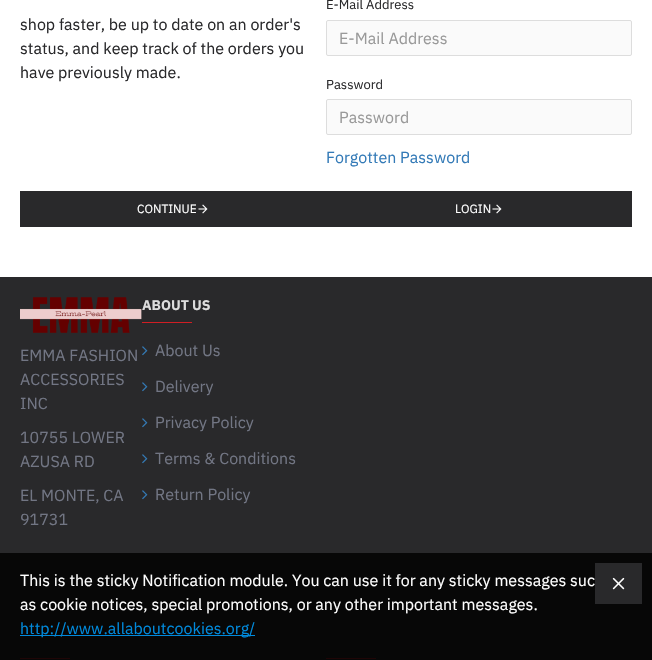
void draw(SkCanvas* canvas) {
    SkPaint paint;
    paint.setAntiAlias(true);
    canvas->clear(0xFFFFFFFF);
    SkFont font1(fontMgr->matchFamilyStyle("IBM Plex Sans", SkFontStyle::Normal()), 16);
    font1.setSubpixel(true);
    paint.setColor(0xFF29292B);
    canvas->drawString("shop faster, be up to date on an order's", 20, 30, font1, paint);
    canvas->drawString("status, and keep track of the orders you", 20, 54, font1, paint);
    canvas->drawString("have previously made.", 20, 78, font1, paint);
    canvas->drawRect(SkRect::MakeXYWH(20, 191, 612, 36), paint);
    SkFont font2(fontMgr->matchFamilyStyle("IBM Plex Sans", SkFontStyle::Normal()), 12);
    font2.setSubpixel(true);
    paint.setColor(0xFFFFFFFF);
    canvas->drawString("CONTINUE", 137, 213, font2, paint);
    canvas->drawImageRect(SkImages::DeferredFromEncodedData(SkData::MakeFromFileName("img1.png")), SkRect::MakeXYWH(198, 204, 10, 10), SkSamplingOptions());
    SkFont font3(fontMgr->matchFamilyStyle("IBM Plex Sans", SkFontStyle::Normal()), 13);
    font3.setSubpixel(true);
    paint.setColor(0xFF29292B);
    canvas->drawString("E-Mail Address", 326, 9, font3, paint);
    paint.setColor(0xFFFAFAFA);
    canvas->drawRoundRect(SkRect::MakeXYWH(326.5f, 20.5f, 305, 35), 1.5f, 1.5f, paint);
    paint.setStyle(SkPaint::kStroke_Style);
    paint.setStrokeWidth(1);
    paint.setColor(0xFFDDDDDD);
    canvas->drawRoundRect(SkRect::MakeXYWH(326.5f, 20.5f, 305, 35), 1.5f, 1.5f, paint);
    paint.setStyle(SkPaint::kFill_Style);
    paint.setColor(0xFF999999);
    canvas->drawString("E-Mail Address", 339, 44, font1, paint);
    paint.setColor(0xFF29292B);
    canvas->drawString("Password", 326, 89, font3, paint);
    paint.setColor(0xFFFAFAFA);
    canvas->drawRoundRect(SkRect::MakeXYWH(326.5f, 99.5f, 305, 35), 1.5f, 1.5f, paint);
    paint.setStyle(SkPaint::kStroke_Style);
    paint.setColor(0xFFDDDDDD);
    canvas->drawRoundRect(SkRect::MakeXYWH(326.5f, 99.5f, 305, 35), 1.5f, 1.5f, paint);
    paint.setStyle(SkPaint::kFill_Style);
    paint.setColor(0xFF999999);
    canvas->drawString("Password", 339, 123, font1, paint);
    paint.setColor(0xFF337AB7);
    canvas->drawString("Forgotten Password", 326, 163, font1, paint);
    paint.setColor(0xFFFFFFFF);
    canvas->drawString("LOGIN", 455, 213, font2, paint);
    canvas->drawImageRect(SkImages::DeferredFromEncodedData(SkData::MakeFromFileName("img1.png")), SkRect::MakeXYWH(492, 204, 10, 10), SkSamplingOptions());
    paint.setColor(0xFF29292B);
    canvas->drawRect(SkRect::MakeXYWH(0, 277, 652, 383), paint);
    canvas->drawImageRect(SkImages::DeferredFromEncodedData(SkData::MakeFromFileName("img2.png")), SkRect::MakeXYWH(20, 297, 122, 36), SkSamplingOptions());
    paint.setColor(0xFF727684);
    canvas->drawString("EMMA FASHION", 20, 361, font1, paint);
    canvas->drawString("ACCESSORIES", 20, 385, font1, paint);
    canvas->drawString("INC", 20, 409, font1, paint);
    canvas->drawString("10755 LOWER", 20, 443, font1, paint);
    canvas->drawString("AZUSA RD", 20, 467, font1, paint);
    canvas->drawString("EL MONTE, CA", 20, 501, font1, paint);
    canvas->drawString("91731", 20, 525, font1, paint);
    SkFont font4(fontMgr->matchFamilyStyle("IBM Plex Sans", SkFontStyle::Bold()), 14);
    font4.setSubpixel(true);
    paint.setColor(0xFFDDDDDD);
    canvas->drawString("ABOUT US", 142, 310, font4, paint);
    paint.setColor(0xFFD01E24);
    canvas->drawRect(SkRect::MakeXYWH(142, 322, 50, 1), paint);
    canvas->drawImageRect(SkImages::DeferredFromEncodedData(SkData::MakeFromFileName("img3.png")), SkRect::MakeXYWH(142, 346, 6, 10), SkSamplingOptions());
    paint.setColor(0xFF727684);
    canvas->drawString("About Us", 155, 356, font1, paint);
    canvas->drawImageRect(SkImages::DeferredFromEncodedData(SkData::MakeFromFileName("img3.png")), SkRect::MakeXYWH(142, 382, 6, 10), SkSamplingOptions());
    canvas->drawString("Delivery", 155, 392, font1, paint);
    canvas->drawImageRect(SkImages::DeferredFromEncodedData(SkData::MakeFromFileName("img3.png")), SkRect::MakeXYWH(142, 418, 6, 10), SkSamplingOptions());
    canvas->drawString("Privacy Policy", 155, 428, font1, paint);
    canvas->drawImageRect(SkImages::DeferredFromEncodedData(SkData::MakeFromFileName("img3.png")), SkRect::MakeXYWH(142, 454, 6, 10), SkSamplingOptions());
    canvas->drawString("Terms & Conditions", 155, 464, font1, paint);
    canvas->drawImageRect(SkImages::DeferredFromEncodedData(SkData::MakeFromFileName("img3.png")), SkRect::MakeXYWH(142, 490, 6, 10), SkSamplingOptions());
    canvas->drawString("Return Policy", 155, 500, font1, paint);
    paint.setColor(0xFFD01E24);
    canvas->drawRect(SkRect::MakeXYWH(20, 658, 50, 1), paint);
    canvas->drawRect(SkRect::MakeXYWH(326, 658, 50, 1), paint);
    paint.setColor(0xD9000000);
    canvas->drawRect(SkRect::MakeXYWH(0, 553, 652, 107), paint);
    paint.setColor(0xFFFFFFFF);
    canvas->drawString("This is the sticky Notification module. You can use it for any sticky messages suc", 20, 586, font1, paint);
    canvas->drawString("as cookie notices, special promotions, or any other important messages.", 20, 610, font1, paint);
    paint.setColor(0xFF008ADD);
    canvas->drawRect(SkRect::MakeXYWH(20, 635, 235, 1), paint);
    canvas->drawString("http://www.allaboutcookies.org/", 20, 634, font1, paint);
    paint.setColor(0xFF29292B);
    canvas->drawRect(SkRect::MakeXYWH(595, 563, 47, 41), paint);
    canvas->drawImageRect(SkImages::DeferredFromEncodedData(SkData::MakeFromFileName("img4.png")), SkRect::MakeXYWH(612, 577, 13, 13), SkSamplingOptions());
}
